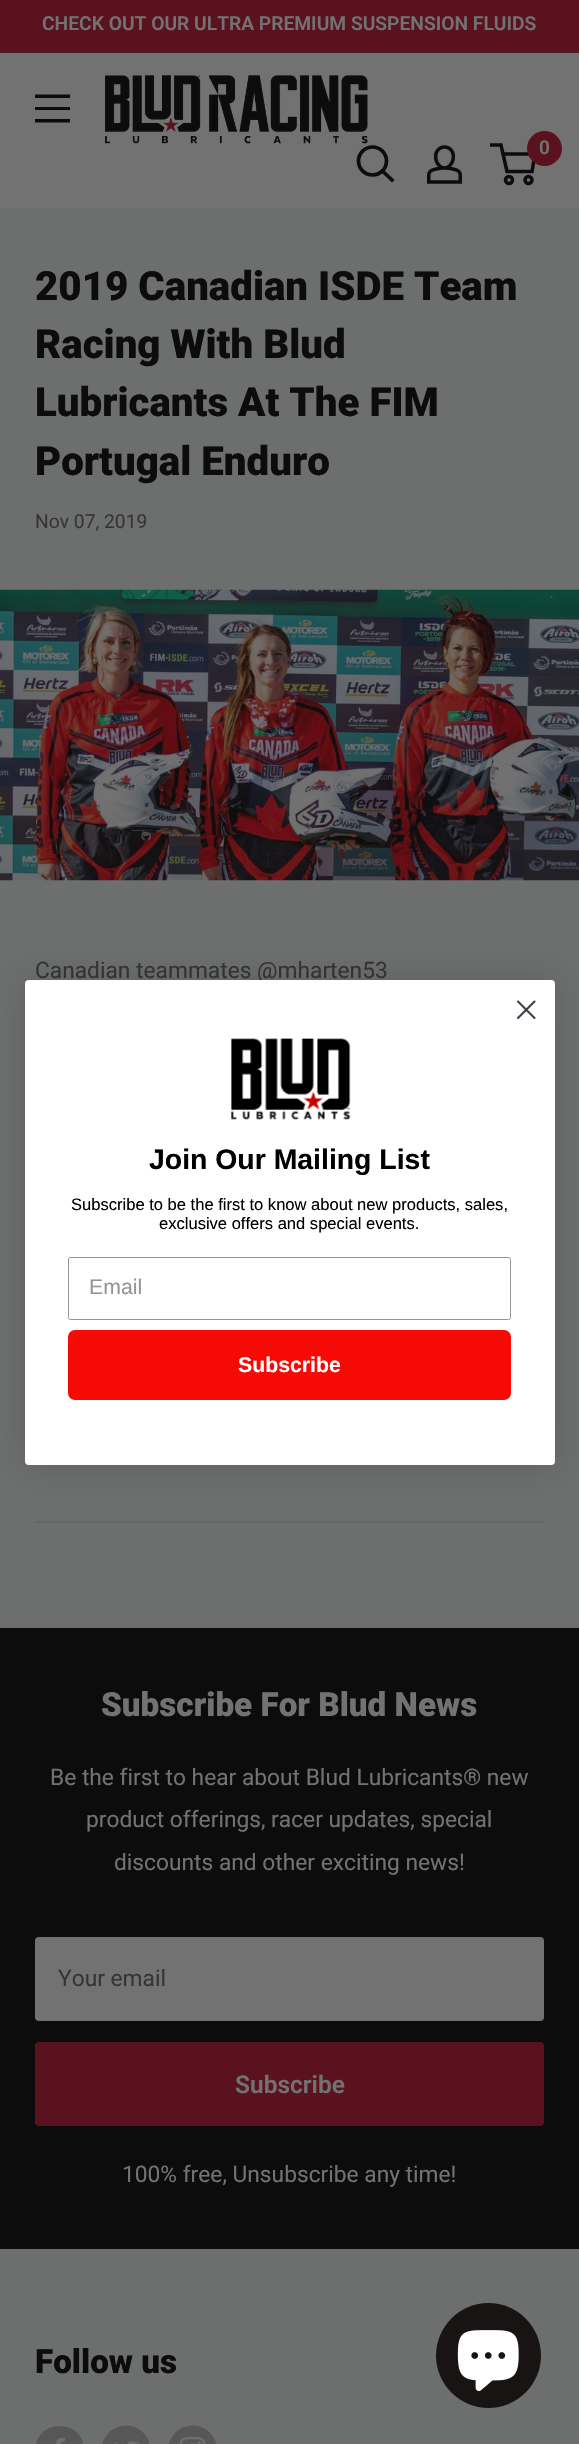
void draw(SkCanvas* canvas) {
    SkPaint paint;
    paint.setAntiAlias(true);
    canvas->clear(0xFF6D6E6E);
    paint.setColor(0xFF5A121F);
    canvas->drawRect(SkRect::MakeXYWH(0, 0, 579, 51), paint);
    paint.setColor(0xFF4E1C26);
    canvas->drawRect(SkRect::MakeXYWH(0, 51, 579, 2), paint);
    SkFont font1(fontMgr->matchFamilyStyle("Roboto", SkFontStyle(600, SkFontStyle::kNormal_Width, SkFontStyle::kUpright_Slant)), 19.25f);
    font1.setSubpixel(true);
    paint.setColor(0xFF727272);
    canvas->drawString("CHECK OUT OUR ULTRA PREMIUM SUSPENSION FLUIDS", 42, 30, font1, paint);
    canvas->drawRect(SkRect::MakeXYWH(0, 53, 579, 155), paint);
    paint.setColor(0xFF0C0C0C);
    canvas->drawPath(SkPathBuilder(SkPathFillType::kEvenOdd).moveTo(35, 119).lineTo(70, 119).lineTo(70, 122.5f).lineTo(35, 122.5f).close().moveTo(35, 94.5f).lineTo(70, 94.5f).lineTo(70, 98).lineTo(35, 98).close().moveTo(35, 107).lineTo(70, 107).lineTo(70, 110).lineTo(35, 110).close().detach(), paint);
    canvas->drawImageRect(SkImages::DeferredFromEncodedData(SkData::MakeFromFileName("img1.png")), SkRect::MakeXYWH(105, 75, 263, 69), SkSamplingOptions());
    paint.setStyle(SkPaint::kStroke_Style);
    paint.setStrokeWidth(3.7f);
    paint.setStrokeCap(SkPaint::kSquare_Cap);
    canvas->drawPath(SkPathBuilder().moveTo(392, 180).lineTo(382.5f, 171).detach(), paint);
    paint.setStrokeCap(SkPaint::kButt_Cap);
    canvas->drawCircle(372.5f, 161, 14, paint);
    canvas->drawImageRect(SkImages::DeferredFromEncodedData(SkData::MakeFromFileName("img2.png")), SkRect::MakeXYWH(427, 145, 35, 39), SkSamplingOptions());
    paint.setStrokeWidth(3.5f);
    canvas->drawCircle(509, 180, 3.5f, paint);
    canvas->drawCircle(528.5f, 180, 3.5f, paint);
    canvas->drawPath(SkPathBuilder().moveTo(503, 154).lineTo(535, 154).lineTo(532, 171.5f).lineTo(507, 171.5f).lineTo(501, 145).lineTo(490, 145).detach(), paint);
    paint.setStyle(SkPaint::kFill_Style);
    paint.setColor(0xFF5A121F);
    canvas->drawCircle(544.5f, 148.5f, 17.5f, paint);
    SkFont font2(fontMgr->matchFamilyStyle("Roboto", SkFontStyle(600, SkFontStyle::kNormal_Width, SkFontStyle::kUpright_Slant)), 19);
    font2.setSubpixel(true);
    paint.setColor(0xFF727272);
    canvas->drawString("0", 539, 154, font2, paint);
    SkFont font3(fontMgr->matchFamilyStyle("Roboto", SkFontStyle(900, SkFontStyle::kNormal_Width, SkFontStyle::kUpright_Slant)), 40.25f);
    font3.setSubpixel(true);
    paint.setColor(0xFF0C0C0C);
    canvas->drawString("2019 Canadian ISDE Team", 35, 300, font3, paint);
    canvas->drawString("Racing With Blud", 35, 358, font3, paint);
    canvas->drawString("Lubricants At The FIM", 35, 416, font3, paint);
    canvas->drawString("Portugal Enduro", 35, 475, font3, paint);
    SkFont font4(fontMgr->matchFamilyStyle("Roboto", SkFontStyle::Normal()), 19.25f);
    font4.setSubpixel(true);
    paint.setColor(0xFF353535);
    canvas->drawString("Nov 07, 2019", 35, 528, font4, paint);
    canvas->drawImageRect(SkImages::DeferredFromEncodedData(SkData::MakeFromFileName("img3.png")), SkRect::MakeXYWH(0, 589, 579, 292), SkSamplingOptions());
    SkFont font5(fontMgr->matchFamilyStyle("Roboto", SkFontStyle::Normal()), 22.75f);
    font5.setSubpixel(true);
    canvas->drawString("Canadian teammates @mharten53", 35, 978, font5, paint);
    paint.setColor(0xFF666767);
    canvas->drawRect(SkRect::MakeXYWH(35, 1521, 509, 2), paint);
    paint.setColor(0xFF0C0C0C);
    canvas->drawRect(SkRect::MakeXYWH(0, 1628, 579, 621), paint);
    SkFont font6(fontMgr->matchFamilyStyle("Roboto", SkFontStyle(900, SkFontStyle::kNormal_Width, SkFontStyle::kUpright_Slant)), 33.25f);
    font6.setSubpixel(true);
    paint.setColor(0xFF727272);
    canvas->drawString("Subscribe For Blud News", 101, 1716, font6, paint);
    canvas->drawString("Be the first to hear about Blud Lubricants® new", 50, 1785, font5, paint);
    canvas->drawString("product offerings, racer updates, special", 86, 1827, font5, paint);
    canvas->drawString("discounts and other exciting news!", 114, 1870, font5, paint);
    canvas->drawRoundRect(SkRect::MakeXYWH(35, 1937, 509, 84), 4, 4, paint);
    paint.setColor(0x40666767);
    canvas->drawPath(SkPathBuilder().moveTo(38, 1939).lineTo(541, 1939).cubicTo(543, 1939, 544, 1941, 544, 1942).lineTo(544, 1941).cubicTo(544, 1939, 542, 1937, 540, 1937).lineTo(39, 1937).cubicTo(37, 1937, 35, 1939, 35, 1941).lineTo(35, 1942).cubicTo(35, 1941, 37, 1939, 38, 1939).close().detach(), paint);
    paint.setColor(0xFF353535);
    canvas->drawString("Your email", 58, 1986, font5, paint);
    paint.setColor(0xFF5A121F);
    canvas->drawRoundRect(SkRect::MakeXYWH(35, 2042, 509, 84), 4, 4, paint);
    SkFont font7(fontMgr->matchFamilyStyle("Roboto", SkFontStyle(600, SkFontStyle::kNormal_Width, SkFontStyle::kUpright_Slant)), 24.5f);
    font7.setSubpixel(true);
    paint.setColor(0xFF727272);
    canvas->drawString("Subscribe", 235, 2093, font7, paint);
    canvas->drawString("100% free, Unsubscribe any time!", 122, 2182, font5, paint);
    paint.setColor(0xFF0C0C0C);
    canvas->drawString("Follow us", 35, 2373, font6, paint);
    paint.setColor(0xFF575757);
    canvas->drawPath(SkPathBuilder(SkPathFillType::kEvenOdd).moveTo(60, 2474).cubicTo(27, 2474, 27, 2426, 60, 2426).cubicTo(92, 2426, 92, 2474, 60, 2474).close().moveTo(65, 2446).lineTo(61, 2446).cubicTo(61, 2443, 61, 2441, 65, 2441).lineTo(65, 2438).cubicTo(57, 2438, 56, 2439, 56, 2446).lineTo(54, 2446).lineTo(54, 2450).lineTo(56, 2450).lineTo(56, 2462).lineTo(61, 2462).lineTo(61, 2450).lineTo(65, 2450).close().detach(), paint);
    canvas->drawImageRect(SkImages::DeferredFromEncodedData(SkData::MakeFromFileName("img4.png")), SkRect::MakeXYWH(102, 2425, 48, 19), SkSamplingOptions());
    canvas->drawImageRect(SkImages::DeferredFromEncodedData(SkData::MakeFromFileName("img5.png")), SkRect::MakeXYWH(168, 2425, 49, 19), SkSamplingOptions());
    paint.setColor(0x26000000);
    paint.setMaskFilter(SkMaskFilter::MakeBlur(kNormal_SkBlurStyle, 17.5f));
    canvas->drawRoundRect(SkRect::MakeXYWH(25, 980, 530, 485), 4, 4, paint);
    paint.setMaskFilter(nullptr);
    paint.setColor(0xFFFFFFFF);
    canvas->drawRoundRect(SkRect::MakeXYWH(25, 980, 530, 485), 4, 4, paint);
    paint.setStyle(SkPaint::kStroke_Style);
    paint.setStrokeWidth(2.1f);
    paint.setStrokeCap(SkPaint::kRound_Cap);
    paint.setStrokeJoin(SkPaint::kRound_Join);
    paint.setColor(0xFF373F47);
    canvas->drawPath(SkPathBuilder().moveTo(518, 1001.5f).lineTo(534.5f, 1018).moveTo(518, 1018).lineTo(534.5f, 1001.5f).close().detach(), paint);
    canvas->drawImageRect(SkImages::DeferredFromEncodedData(SkData::MakeFromFileName("img6.png")), SkRect::MakeXYWH(231, 1038, 120, 82), SkSamplingOptions());
    SkFont font8(fontMgr->matchFamilyStyle("Liberation Sans", SkFontStyle::Bold()), 28.4f);
    font8.setSubpixel(true);
    paint.setStyle(SkPaint::kFill_Style);
    paint.setColor(0xFF000000);
    canvas->drawString("Join Our Mailing List", 149, 1169, font8, paint);
    SkFont font9(fontMgr->matchFamilyStyle("Liberation Sans", SkFontStyle::Normal()), 16.55f);
    font9.setSubpixel(true);
    canvas->drawString("Subscribe to be the first to know about new products, sales,", 71, 1210, font9, paint);
    canvas->drawString("exclusive offers and special events.", 159, 1229, font9, paint);
    paint.setStyle(SkPaint::kStroke_Style);
    paint.setStrokeWidth(1);
    paint.setStrokeCap(SkPaint::kButt_Cap);
    paint.setStrokeJoin(SkPaint::kMiter_Join);
    paint.setColor(0xFF949596);
    canvas->drawRoundRect(SkRect::MakeXYWH(68.5f, 1257.5f, 442, 62), 2, 2, paint);
    SkFont font10(fontMgr->matchFamilyStyle("Liberation Sans", SkFontStyle::Normal()), 21.25f);
    font10.setSubpixel(true);
    paint.setStyle(SkPaint::kFill_Style);
    canvas->drawString("Email", 89, 1294, font10, paint);
    paint.setColor(0xFFF50A05);
    canvas->drawRoundRect(SkRect::MakeXYWH(73.5f, 1335.5f, 432, 59), 1.5f, 1.5f, paint);
    paint.setStyle(SkPaint::kStroke_Style);
    paint.setStrokeWidth(11);
    canvas->drawRoundRect(SkRect::MakeXYWH(73.5f, 1335.5f, 432, 59), 1.5f, 1.5f, paint);
    SkFont font11(fontMgr->matchFamilyStyle("Liberation Sans", SkFontStyle::Bold()), 21.25f);
    font11.setSubpixel(true);
    paint.setStyle(SkPaint::kFill_Style);
    paint.setColor(0xFFFFFFFF);
    canvas->drawString("Subscribe", 238, 1372, font11, paint);
    paint.setColor(0xFF181414);
    canvas->drawCircle(488.5f, 2355.5f, 52.5f, paint);
    canvas->drawImageRect(SkImages::DeferredFromEncodedData(SkData::MakeFromFileName("img7.png")), SkRect::MakeXYWH(457, 2330, 62, 61), SkSamplingOptions());
}
